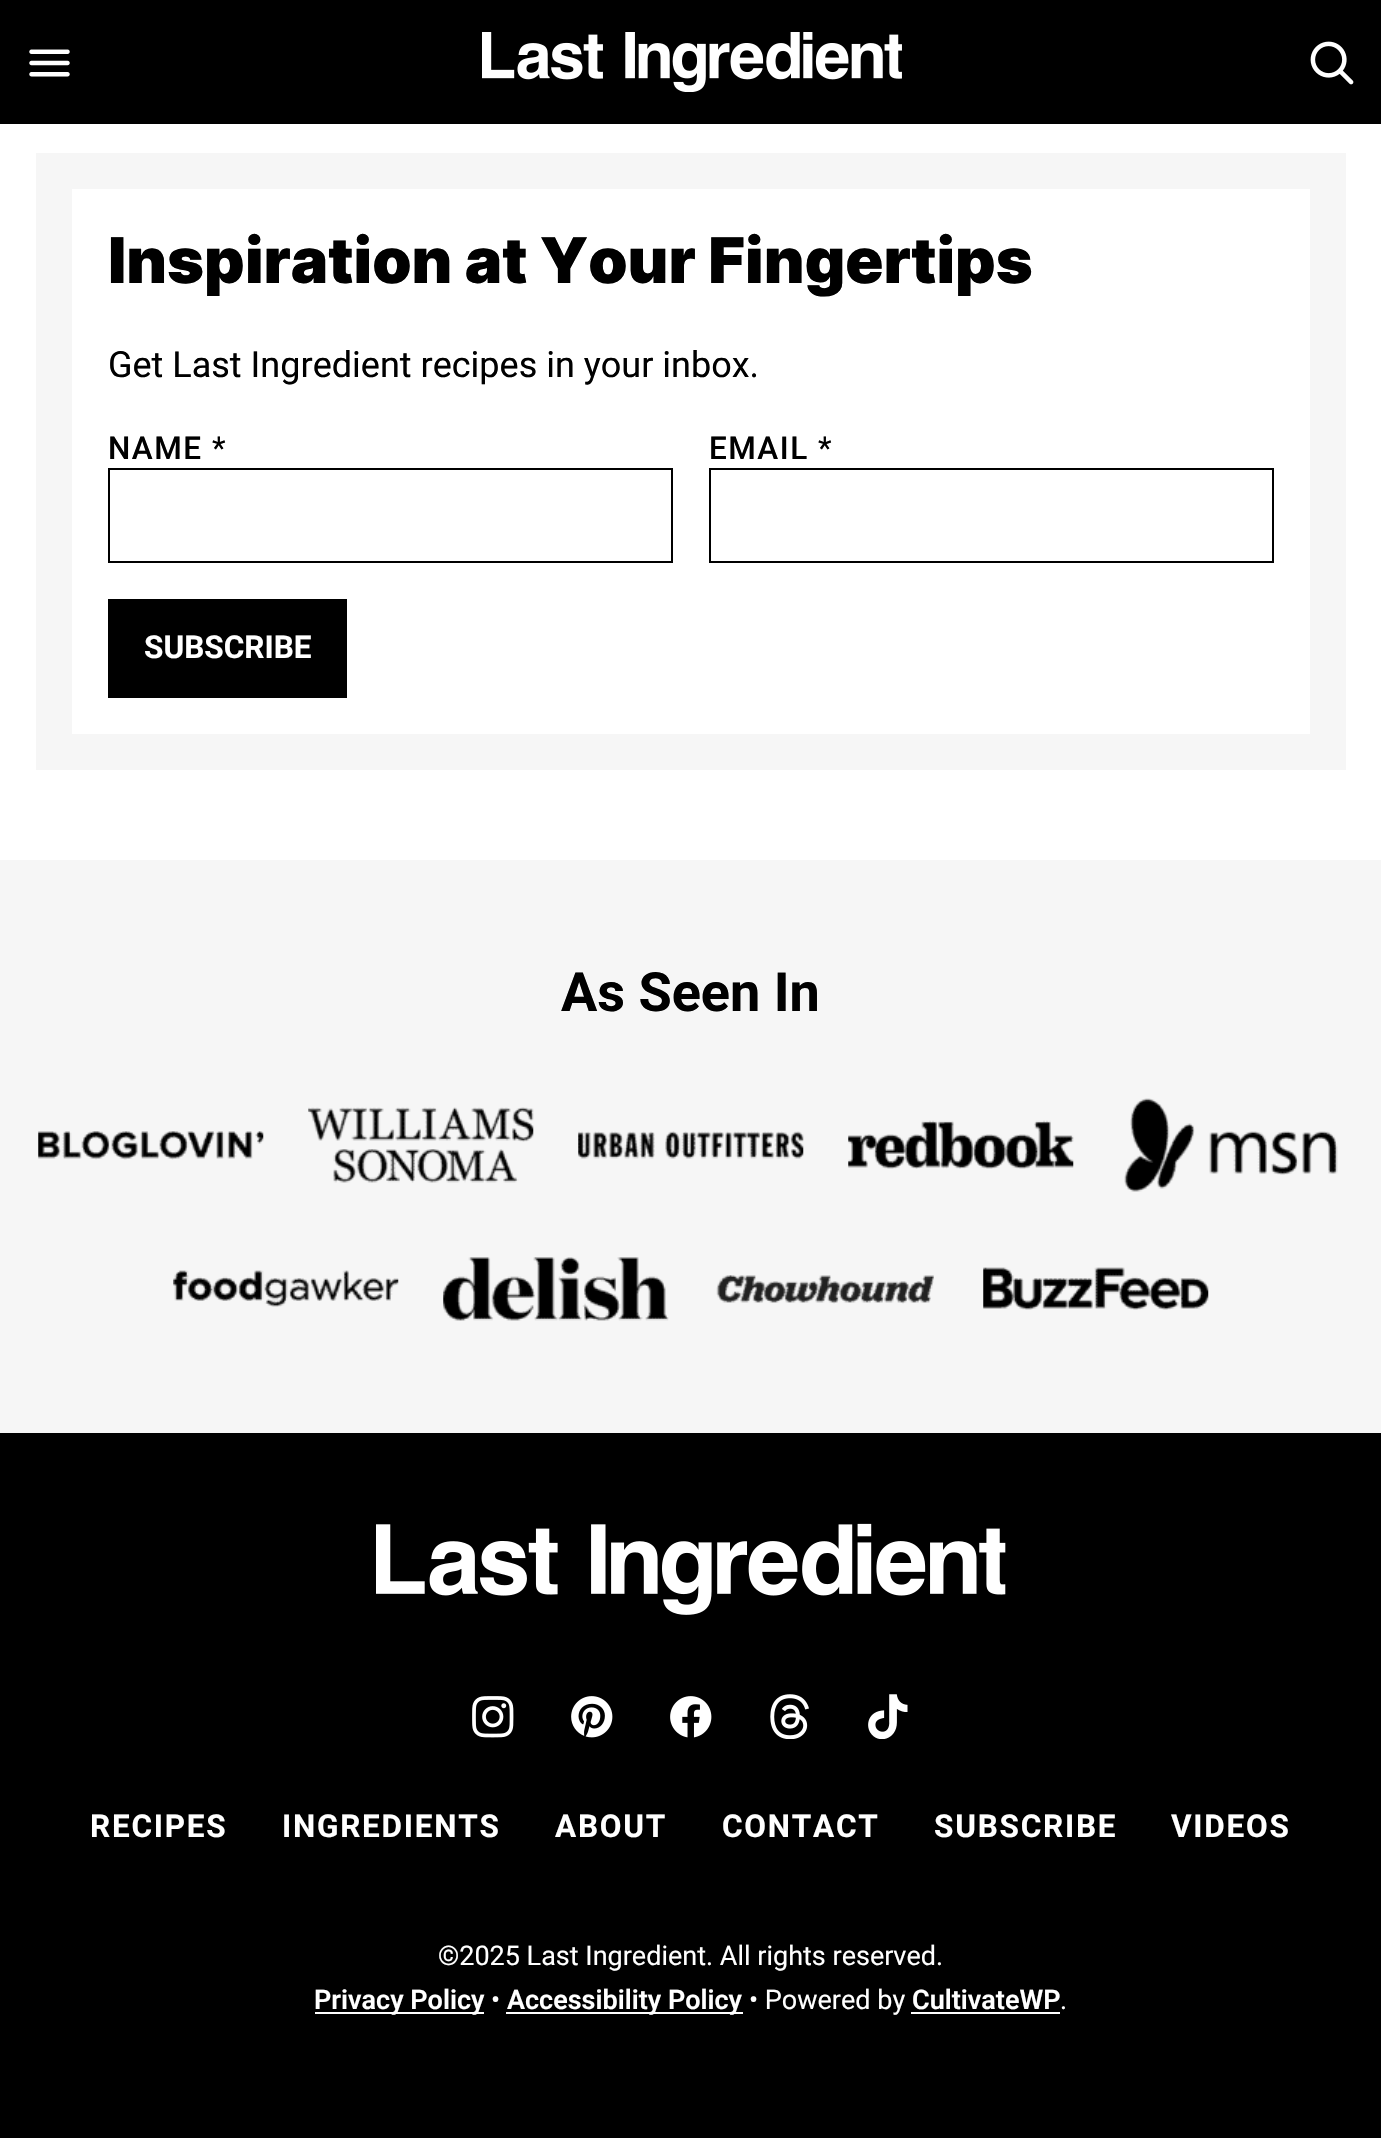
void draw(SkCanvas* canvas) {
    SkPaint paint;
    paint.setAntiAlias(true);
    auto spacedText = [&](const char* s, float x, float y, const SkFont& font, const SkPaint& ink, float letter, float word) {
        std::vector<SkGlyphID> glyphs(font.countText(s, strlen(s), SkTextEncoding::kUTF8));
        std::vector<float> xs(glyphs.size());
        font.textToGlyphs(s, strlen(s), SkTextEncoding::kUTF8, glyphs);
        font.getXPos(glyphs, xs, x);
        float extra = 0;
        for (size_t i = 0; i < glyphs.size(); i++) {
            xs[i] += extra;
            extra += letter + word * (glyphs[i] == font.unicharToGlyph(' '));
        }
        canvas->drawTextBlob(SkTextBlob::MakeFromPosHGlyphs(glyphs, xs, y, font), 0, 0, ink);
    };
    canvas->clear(0xFFFFFFFF);
    paint.setColor(0xFF000000);
    canvas->drawRect(SkRect::MakeXYWH(0, 0, 1381, 124), paint);
    canvas->drawImageRect(SkImages::DeferredFromEncodedData(SkData::MakeFromFileName("img1.png")), SkRect::MakeXYWH(29, 49, 41, 28), SkSamplingOptions());
    canvas->drawImageRect(SkImages::DeferredFromEncodedData(SkData::MakeFromFileName("img2.png")), SkRect::MakeXYWH(482, 32, 420, 60), SkSamplingOptions());
    canvas->drawImageRect(SkImages::DeferredFromEncodedData(SkData::MakeFromFileName("img3.png")), SkRect::MakeXYWH(1310, 41, 44, 44), SkSamplingOptions());
    paint.setColor(0xFFF6F6F6);
    canvas->drawRect(SkRect::MakeXYWH(36, 153, 1310, 617), paint);
    paint.setColor(0xFFFFFFFF);
    canvas->drawRect(SkRect::MakeXYWH(72, 189, 1238, 545), paint);
    SkFont font1(fontMgr->matchFamilyStyle("Inter", SkFontStyle(900, SkFontStyle::kNormal_Width, SkFontStyle::kUpright_Slant)), 63);
    font1.setSubpixel(true);
    paint.setColor(0xFF000000);
    canvas->drawString("Inspiration at Your Fingertips", 108, 283, font1, paint);
    SkFont font2(fontMgr->matchFamilyStyle("Roboto", SkFontStyle::Normal()), 36);
    font2.setSubpixel(true);
    canvas->drawString("Get Last Ingredient recipes in your inbox.", 108, 377, font2, paint);
    SkFont font3(fontMgr->matchFamilyStyle("Roboto", SkFontStyle(500, SkFontStyle::kNormal_Width, SkFontStyle::kUpright_Slant)), 31.5f);
    font3.setSubpixel(true);
    spacedText("NAME", 108, 459, font3, paint, 1.5f, 0);
    SkFont font4(fontMgr->matchFamilyStyle("Roboto", SkFontStyle::Normal()), 31.5f);
    font4.setSubpixel(true);
    spacedText("*", 212, 459, font4, paint, 1.5f, 0);
    paint.setStyle(SkPaint::kStroke_Style);
    paint.setStrokeWidth(2);
    canvas->drawRect(SkRect::MakeXYWH(109, 469, 563, 93), paint);
    paint.setStyle(SkPaint::kFill_Style);
    spacedText("EMAIL", 709, 459, font3, paint, 1.5f, 0);
    spacedText("*", 818, 459, font4, paint, 1.5f, 0);
    paint.setStyle(SkPaint::kStroke_Style);
    canvas->drawRect(SkRect::MakeXYWH(710, 469, 563, 93), paint);
    paint.setStyle(SkPaint::kFill_Style);
    canvas->drawRect(SkRect::MakeXYWH(108, 599, 239, 99), paint);
    SkFont font5(fontMgr->matchFamilyStyle("Roboto", SkFontStyle::Bold()), 31.5f);
    font5.setSubpixel(true);
    paint.setColor(0xFFFFFFFF);
    canvas->drawString("SUBSCRIBE", 144, 658, font5, paint);
    paint.setColor(0xFFF6F6F6);
    canvas->drawRect(SkRect::MakeXYWH(0, 860, 1381, 573), paint);
    SkFont font6(fontMgr->matchFamilyStyle("Roboto", SkFontStyle::Bold()), 54);
    font6.setSubpixel(true);
    paint.setColor(0xFF000000);
    canvas->drawString("As Seen In", 561, 1011, font6, paint);
    canvas->drawImageRect(SkImages::DeferredFromEncodedData(SkData::MakeFromFileName("img4.png")), SkRect::MakeXYWH(38, 1131, 226, 29), SkSamplingOptions());
    canvas->drawImageRect(SkImages::DeferredFromEncodedData(SkData::MakeFromFileName("img5.png")), SkRect::MakeXYWH(308, 1107, 226, 76), SkSamplingOptions());
    canvas->drawImageRect(SkImages::DeferredFromEncodedData(SkData::MakeFromFileName("img6.png")), SkRect::MakeXYWH(578, 1131, 226, 28), SkSamplingOptions());
    canvas->drawImageRect(SkImages::DeferredFromEncodedData(SkData::MakeFromFileName("img7.png")), SkRect::MakeXYWH(848, 1120, 226, 49), SkSamplingOptions());
    canvas->drawImageRect(SkImages::DeferredFromEncodedData(SkData::MakeFromFileName("img8.png")), SkRect::MakeXYWH(1124, 1098, 214, 94), SkSamplingOptions());
    canvas->drawImageRect(SkImages::DeferredFromEncodedData(SkData::MakeFromFileName("img9.png")), SkRect::MakeXYWH(173, 1270, 226, 37), SkSamplingOptions());
    canvas->drawImageRect(SkImages::DeferredFromEncodedData(SkData::MakeFromFileName("img10.png")), SkRect::MakeXYWH(443, 1257, 226, 64), SkSamplingOptions());
    canvas->drawImageRect(SkImages::DeferredFromEncodedData(SkData::MakeFromFileName("img11.png")), SkRect::MakeXYWH(716, 1275, 218, 29), SkSamplingOptions());
    canvas->drawImageRect(SkImages::DeferredFromEncodedData(SkData::MakeFromFileName("img12.png")), SkRect::MakeXYWH(983, 1267, 226, 43), SkSamplingOptions());
    canvas->drawRect(SkRect::MakeXYWH(0, 1433, 1381, 705), paint);
    canvas->drawImageRect(SkImages::DeferredFromEncodedData(SkData::MakeFromFileName("img13.png")), SkRect::MakeXYWH(376, 1523, 630, 92), SkSamplingOptions());
    canvas->drawImageRect(SkImages::DeferredFromEncodedData(SkData::MakeFromFileName("img14.png")), SkRect::MakeXYWH(472, 1696, 42, 42), SkSamplingOptions());
    canvas->drawImageRect(SkImages::DeferredFromEncodedData(SkData::MakeFromFileName("img15.png")), SkRect::MakeXYWH(571, 1696, 42, 42), SkSamplingOptions());
    canvas->drawImageRect(SkImages::DeferredFromEncodedData(SkData::MakeFromFileName("img16.png")), SkRect::MakeXYWH(670, 1696, 42, 42), SkSamplingOptions());
    canvas->drawImageRect(SkImages::DeferredFromEncodedData(SkData::MakeFromFileName("img17.png")), SkRect::MakeXYWH(770, 1694, 39, 45), SkSamplingOptions());
    canvas->drawImageRect(SkImages::DeferredFromEncodedData(SkData::MakeFromFileName("img18.png")), SkRect::MakeXYWH(868, 1694, 40, 45), SkSamplingOptions());
    paint.setColor(0xFFFFFFFF);
    spacedText("RECIPES", 90, 1837, font5, paint, 1.75f, 0);
    spacedText("INGREDIENTS", 282, 1837, font5, paint, 1.75f, 0);
    spacedText("ABOUT", 555, 1837, font5, paint, 1.75f, 0);
    spacedText("CONTACT", 722, 1837, font5, paint, 1.75f, 0);
    spacedText("SUBSCRIBE", 934, 1837, font5, paint, 1.75f, 0);
    spacedText("VIDEOS", 1171, 1837, font5, paint, 1.75f, 0);
    SkFont font7(fontMgr->matchFamilyStyle("Roboto", SkFontStyle::Normal()), 27);
    font7.setSubpixel(true);
    canvas->drawString("©2025 Last Ingredient. All rights reserved.", 438, 1965, font7, paint);
    canvas->drawRect(SkRect::MakeXYWH(315, 2012, 169, 2), paint);
    SkFont font8(fontMgr->matchFamilyStyle("Roboto", SkFontStyle(600, SkFontStyle::kNormal_Width, SkFontStyle::kUpright_Slant)), 27);
    font8.setSubpixel(true);
    canvas->drawString("Privacy Policy", 314, 2009, font8, paint);
    canvas->drawString("•", 491, 2009, font7, paint);
    canvas->drawRect(SkRect::MakeXYWH(506, 2012, 237, 2), paint);
    canvas->drawString("Accessibility Policy", 507, 2009, font8, paint);
    canvas->drawString("• Powered by", 749, 2009, font7, paint);
    canvas->drawString("CultivateWP", 912, 2009, font8, paint);
    canvas->drawString(".", 1060, 2009, font7, paint);
    canvas->drawRect(SkRect::MakeXYWH(911, 2012, 149, 2), paint);
}
